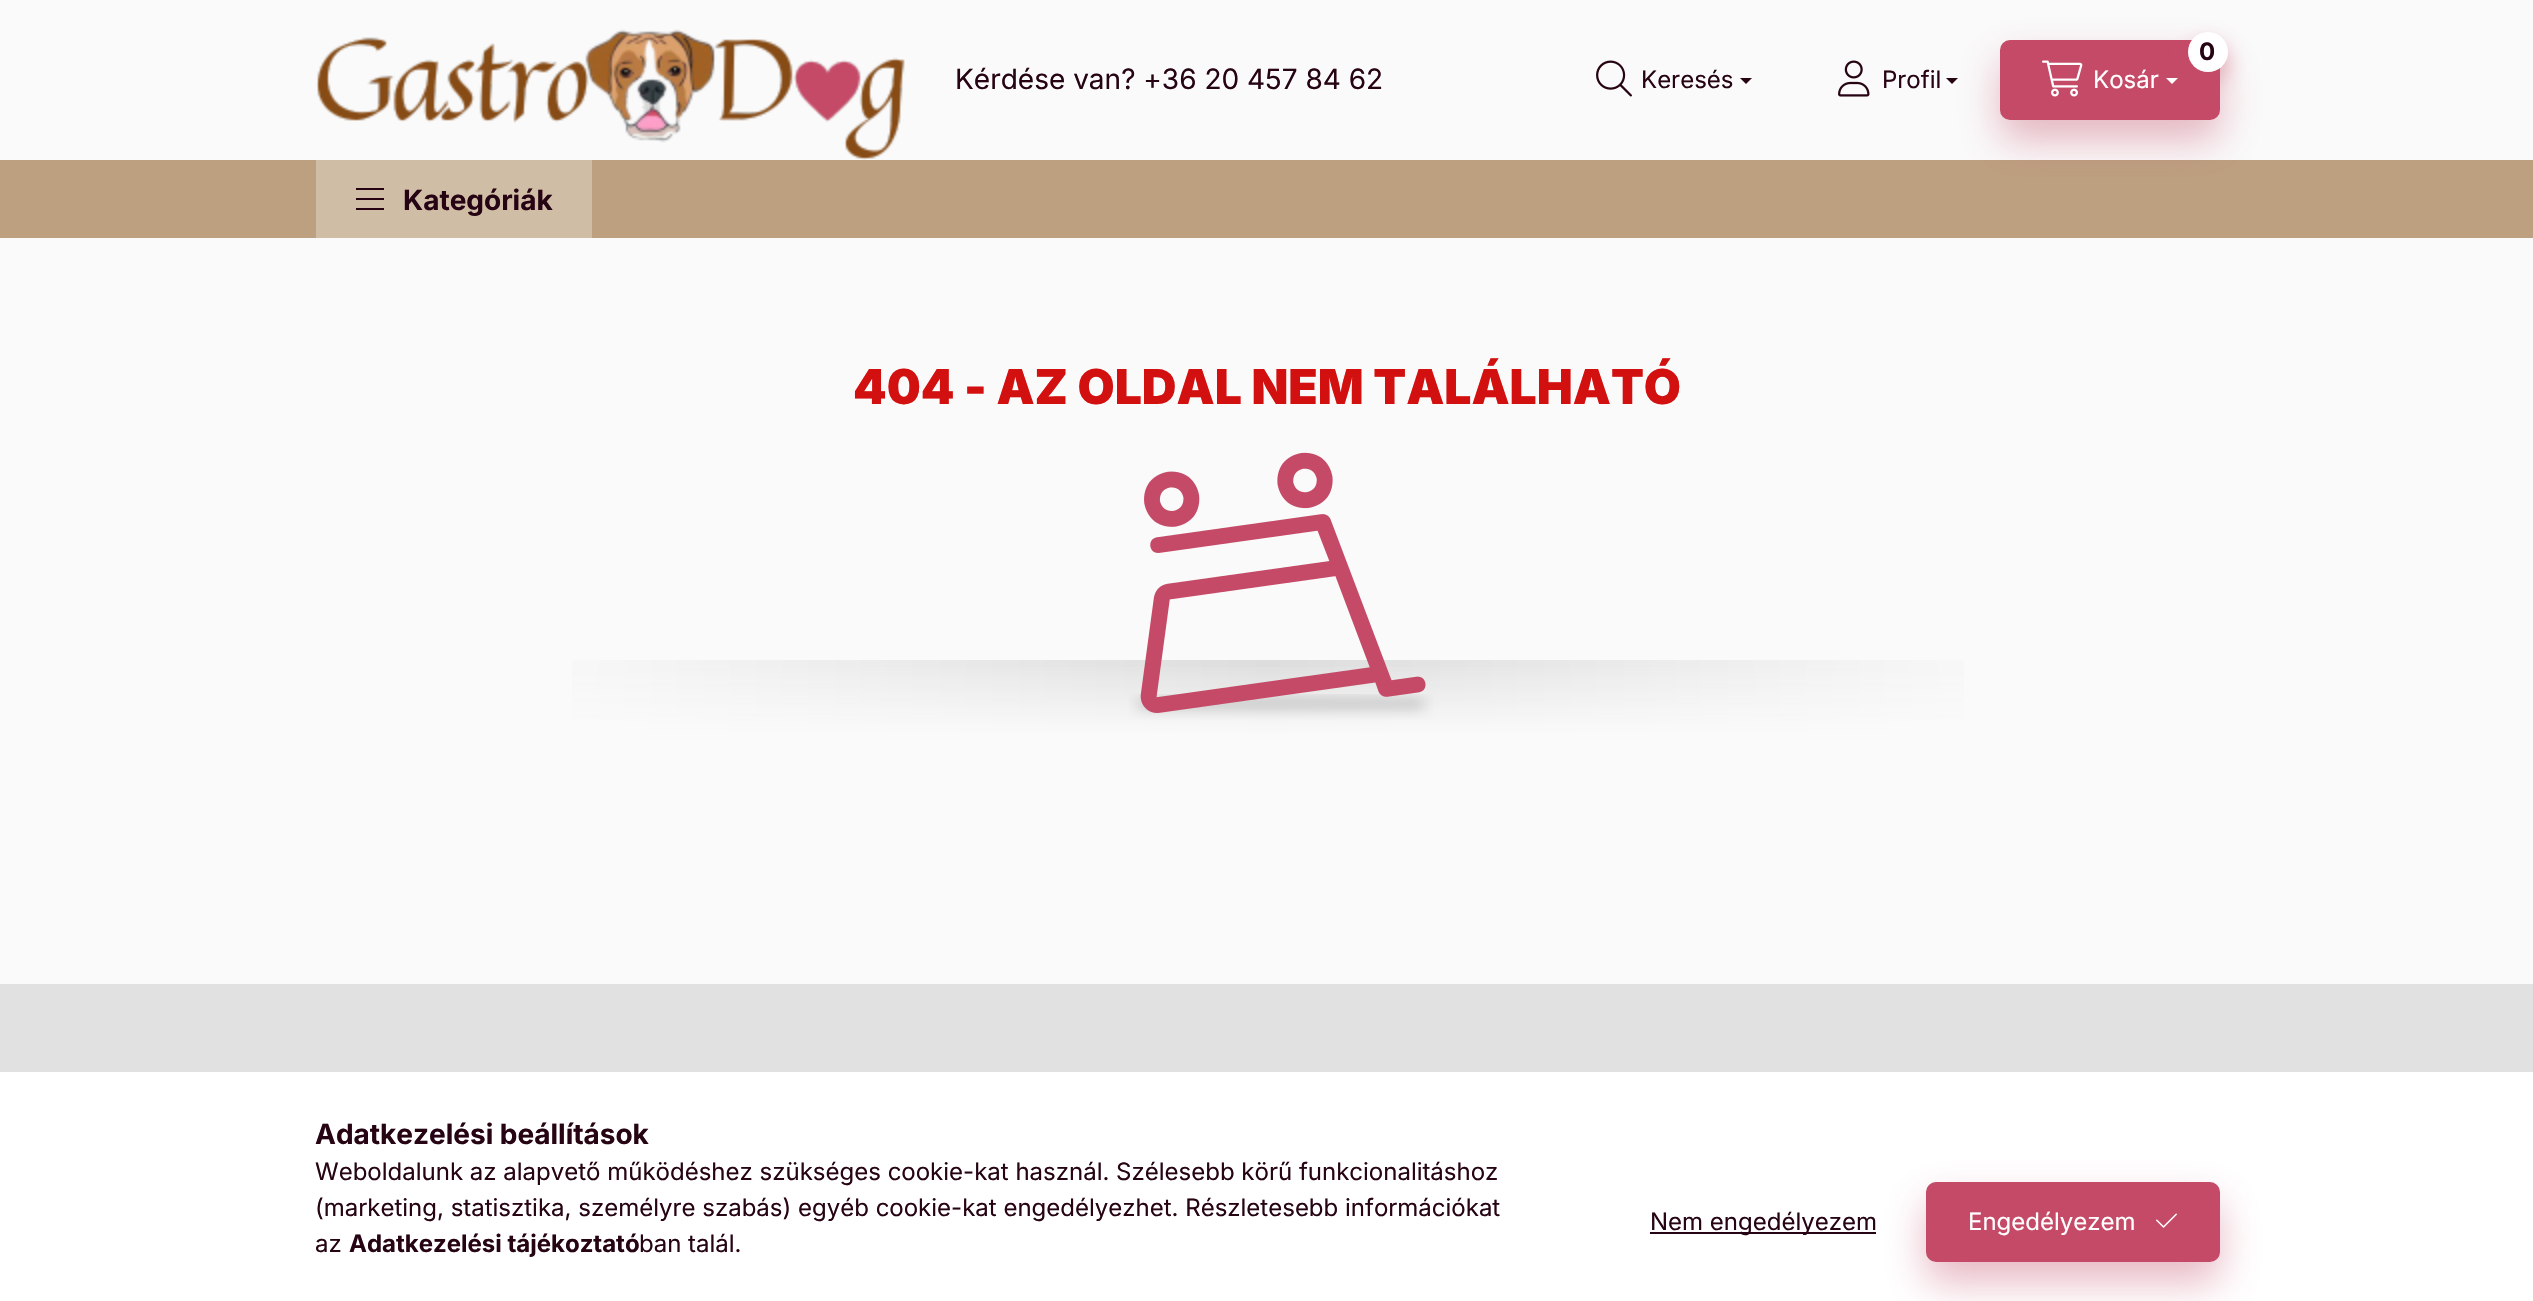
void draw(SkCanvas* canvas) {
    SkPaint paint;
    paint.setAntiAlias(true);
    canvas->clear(0xFFFAFAFA);
    canvas->drawImageRect(SkImages::DeferredFromEncodedData(SkData::MakeFromFileName("img1.png")), SkRect::MakeXYWH(316, 29, 589, 131), SkSamplingOptions());
    SkFont font1(fontMgr->matchFamilyStyle("Inter", SkFontStyle::Normal()), 28);
    font1.setSubpixel(true);
    paint.setColor(0xFF260413);
    canvas->drawString("Kérdése van? +36 20 457 84 62", 955, 89, font1, paint);
    canvas->drawImageRect(SkImages::DeferredFromEncodedData(SkData::MakeFromFileName("img2.png")), SkRect::MakeXYWH(1596, 60, 36, 37), SkSamplingOptions());
    SkFont font2(fontMgr->matchFamilyStyle("Inter", SkFontStyle::Normal()), 24);
    font2.setSubpixel(true);
    canvas->drawString("Keresés", 1641, 88, font2, paint);
    canvas->drawPath(SkPathBuilder().moveTo(1740, 78).lineTo(1752, 78).lineTo(1746, 84).close().detach(), paint);
    canvas->drawImageRect(SkImages::DeferredFromEncodedData(SkData::MakeFromFileName("img3.png")), SkRect::MakeXYWH(1838, 60, 32, 37), SkSamplingOptions());
    canvas->drawString("Profil", 1882, 88, font2, paint);
    paint.setColor(0xFFBCA07F);
    canvas->drawRect(SkRect::MakeXYWH(0, 160, 2533, 78), paint);
    paint.setColor(0x66C44A67);
    paint.setMaskFilter(SkMaskFilter::MakeBlur(kNormal_SkBlurStyle, 20));
    canvas->drawRoundRect(SkRect::MakeXYWH(2000, 60, 220, 80), 10, 10, paint);
    paint.setMaskFilter(nullptr);
    paint.setColor(0xFF260413);
    canvas->drawPath(SkPathBuilder().moveTo(1946, 78).lineTo(1958, 78).lineTo(1952, 84).close().detach(), paint);
    paint.setColor(0xFFC44A67);
    canvas->drawRoundRect(SkRect::MakeXYWH(2000, 40, 220, 80), 10, 10, paint);
    paint.setColor(0x66C44A67);
    paint.setMaskFilter(SkMaskFilter::MakeBlur(kNormal_SkBlurStyle, 10));
    canvas->drawRoundRect(SkRect::MakeXYWH(2188, 42, 40, 40), 20, 20, paint);
    paint.setMaskFilter(nullptr);
    paint.setColor(0xFFFFFFFF);
    canvas->drawCircle(2208, 52, 20, paint);
    SkFont font3(fontMgr->matchFamilyStyle("Inter", SkFontStyle::Bold()), 24);
    font3.setSubpixel(true);
    paint.setColor(0xFF260413);
    canvas->drawString("0", 2199, 60, font3, paint);
    canvas->drawImageRect(SkImages::DeferredFromEncodedData(SkData::MakeFromFileName("img4.png")), SkRect::MakeXYWH(2042, 60, 41, 37), SkSamplingOptions());
    paint.setColor(0xFFFFFFFF);
    canvas->drawString("Kosár", 2093, 88, font2, paint);
    canvas->drawPath(SkPathBuilder().moveTo(2166, 78).lineTo(2178, 78).lineTo(2172, 84).close().detach(), paint);
    paint.setColor(0xFFD0BDA5);
    canvas->drawRect(SkRect::MakeXYWH(316, 160, 276, 78), paint);
    paint.setColor(0xFF260413);
    canvas->drawRect(SkRect::MakeXYWH(356, 188, 28, 2), paint);
    canvas->drawRect(SkRect::MakeXYWH(356, 198, 28, 2), paint);
    canvas->drawRect(SkRect::MakeXYWH(356, 208, 28, 2), paint);
    SkFont font4(fontMgr->matchFamilyStyle("Inter", SkFontStyle::Bold()), 28);
    font4.setSubpixel(true);
    canvas->drawString("Kategóriák", 403, 210, font4, paint);
    SkFont font5(fontMgr->matchFamilyStyle("Inter", SkFontStyle(900, SkFontStyle::kNormal_Width, SkFontStyle::kUpright_Slant)), 48);
    font5.setSubpixel(true);
    paint.setColor(0xFFD31010);
    canvas->drawString("404 - AZ OLDAL NEM TALÁLHATÓ", 853, 404, font5, paint);
    {
        const SkColor colors[] = {0xFFFAFAFA, 0xFFDDDDDD, 0xFFFAFAFA};
        const float stops[] = {0.1f, 0.5f, 0.9f};
        const SkPoint ends[] = {{316, 698}, {2220, 698}};
        paint.setShader(SkGradientShader::MakeLinear(ends, colors, stops, 3, SkTileMode::kClamp));
        paint.setAlpha(255);
    }
    canvas->drawRect(SkRect::MakeXYWH(572, 660, 1392, 76), paint);
    {
        const SkColor colors[] = {0xFFFAFAFA, 0x00FAFAFA};
        const float stops[] = {0, 1};
        const SkPoint ends[] = {{1268, 736}, {1268, 660}};
        paint.setShader(SkGradientShader::MakeLinear(ends, colors, stops, 2, SkTileMode::kClamp));
        paint.setAlpha(255);
    }
    canvas->drawRect(SkRect::MakeXYWH(572, 667, 1392, 69), paint);
    canvas->save();
    canvas->clipRect(SkRect::MakeXYWH(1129, 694, 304, 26));
    paint.setShader(nullptr);
    paint.setColor(0xFF808080);
    paint.setMaskFilter(SkMaskFilter::MakeBlur(kNormal_SkBlurStyle, 7));
    canvas->drawRect(SkRect::MakeXYWH(1138, 702, 286, 4), paint);
    paint.setMaskFilter(nullptr);
    canvas->restore();
    canvas->drawImageRect(SkImages::DeferredFromEncodedData(SkData::MakeFromFileName("img5.png")), SkRect::MakeXYWH(1140, 452, 286, 261), SkSamplingOptions());
    paint.setColor(0xFFE1E1E1);
    canvas->drawRect(SkRect::MakeXYWH(0, 984, 2533, 88), paint);
    paint.setColor(0xFFFFFFFF);
    canvas->drawRect(SkRect::MakeXYWH(0, 1072, 2533, 229), paint);
    paint.setColor(0xFF260413);
    canvas->drawString("Adatkezelési beállítások", 315, 1144, font4, paint);
    canvas->drawString("Weboldalunk az alapvető működéshez szükséges cookie-kat használ. Szélesebb körű funkcionalitáshoz", 315, 1180, font2, paint);
    canvas->drawString("(marketing, statisztika, személyre szabás) egyéb cookie-kat engedélyezhet. Részletesebb információkat", 315, 1216, font2, paint);
    canvas->drawString("az", 315, 1252, font2, paint);
    canvas->drawString("Adatkezelési tájékoztató", 349, 1252, font3, paint);
    canvas->drawString("ban talál.", 639, 1252, font2, paint);
    canvas->drawRect(SkRect::MakeXYWH(1650, 1232, 226, 2), paint);
    canvas->drawString("Nem engedélyezem", 1650, 1230, font2, paint);
    paint.setColor(0x66C44A67);
    paint.setMaskFilter(SkMaskFilter::MakeBlur(kNormal_SkBlurStyle, 20));
    canvas->drawRoundRect(SkRect::MakeXYWH(1926, 1202, 294, 80), 10, 10, paint);
    paint.setMaskFilter(nullptr);
    paint.setColor(0xFFC44A67);
    canvas->drawRoundRect(SkRect::MakeXYWH(1927, 1183, 292, 78), 9, 9, paint);
    paint.setStyle(SkPaint::kStroke_Style);
    paint.setStrokeWidth(2);
    canvas->drawRoundRect(SkRect::MakeXYWH(1927, 1183, 292, 78), 9, 9, paint);
    paint.setStyle(SkPaint::kFill_Style);
    paint.setColor(0xFFFFFFFF);
    canvas->drawString("Engedélyezem", 1968, 1230, font2, paint);
    canvas->drawImageRect(SkImages::DeferredFromEncodedData(SkData::MakeFromFileName("img6.png")), SkRect::MakeXYWH(2156, 1213, 21, 15), SkSamplingOptions());
}
